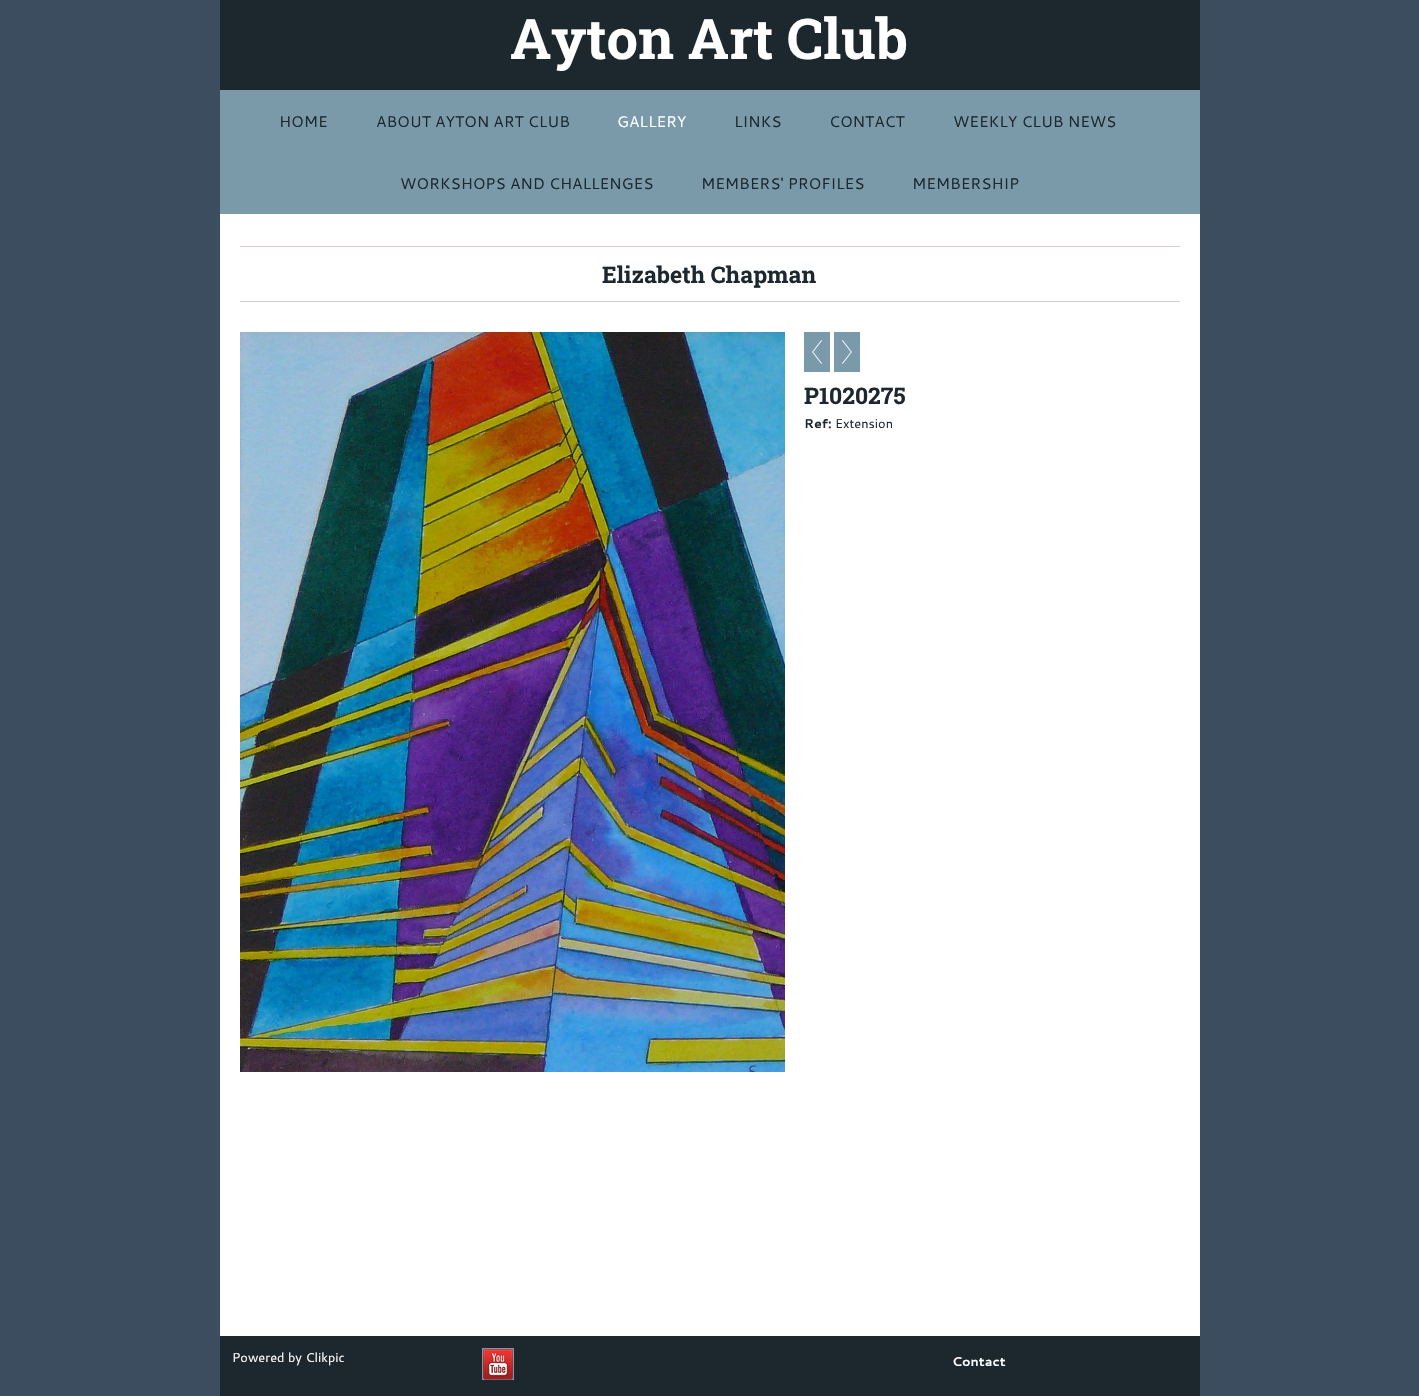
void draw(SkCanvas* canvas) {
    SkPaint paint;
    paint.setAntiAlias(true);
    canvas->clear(0xFF3B4D5E);
    paint.setColor(0xFFFFFFFF);
    canvas->drawRect(SkRect::MakeXYWH(220, 214, 980, 1122), paint);
    paint.setColor(0xFF1D282E);
    canvas->drawRect(SkRect::MakeXYWH(220, 0, 980, 90), paint);
    SkFont font1(fontMgr->matchFamilyStyle("Roboto Slab", SkFontStyle::Bold()), 56);
    font1.setSubpixel(true);
    paint.setColor(0xFFFFFFFF);
    canvas->drawString("Ayton Art Club", 510, 59, font1, paint);
    paint.setColor(0xFF7A9AA9);
    canvas->drawRect(SkRect::MakeXYWH(220, 90, 980, 124), paint);
    SkFont font2(fontMgr->matchFamilyStyle("Cantarell", SkFontStyle::Normal()), 15.4f);
    font2.setSubpixel(true);
    paint.setColor(0xFF1D282E);
    canvas->drawString("HOME", 279, 127, font2, paint);
    canvas->drawString("ABOUT AYTON ART CLUB", 376, 127, font2, paint);
    paint.setColor(0xFFFFFFFF);
    canvas->drawString("GALLERY", 617, 127, font2, paint);
    paint.setColor(0xFF1D282E);
    canvas->drawString("LINKS", 734, 127, font2, paint);
    canvas->drawString("CONTACT", 829, 127, font2, paint);
    canvas->drawString("WEEKLY CLUB NEWS", 953, 127, font2, paint);
    canvas->drawString("WORKSHOPS AND CHALLENGES", 400, 189, font2, paint);
    canvas->drawString("MEMBERS' PROFILES", 701, 189, font2, paint);
    canvas->drawString("MEMBERSHIP", 912, 189, font2, paint);
    paint.setColor(0xFFD6CAD1);
    canvas->drawRect(SkRect::MakeXYWH(240, 246, 940, 1), paint);
    canvas->drawRect(SkRect::MakeXYWH(240, 301, 940, 1), paint);
    SkFont font3(fontMgr->matchFamilyStyle("Roboto Slab", SkFontStyle::Bold()), 23);
    font3.setSubpixel(true);
    paint.setColor(0xFF1D282E);
    canvas->drawString("Elizabeth Chapman", 602, 283, font3, paint);
    canvas->drawImageRect(SkImages::DeferredFromEncodedData(SkData::MakeFromFileName("img1.png")), SkRect::MakeXYWH(240, 332, 545, 740), SkSamplingOptions());
    paint.setColor(0xFF7A9AA9);
    canvas->drawRect(SkRect::MakeXYWH(804, 332, 26, 40), paint);
    canvas->drawImageRect(SkImages::DeferredFromEncodedData(SkData::MakeFromFileName("img2.png")), SkRect::MakeXYWH(812, 340, 10, 24), SkSamplingOptions());
    canvas->drawRect(SkRect::MakeXYWH(834, 332, 26, 40), paint);
    canvas->drawImageRect(SkImages::DeferredFromEncodedData(SkData::MakeFromFileName("img3.png")), SkRect::MakeXYWH(842, 340, 10, 24), SkSamplingOptions());
    paint.setColor(0xFF1D282E);
    canvas->drawString("P1020275", 804, 404, font3, paint);
    SkFont font4(fontMgr->matchFamilyStyle("Cantarell", SkFontStyle::Bold()), 12.75f);
    font4.setSubpixel(true);
    canvas->drawString("Ref:", 804, 428, font4, paint);
    SkFont font5(fontMgr->matchFamilyStyle("Cantarell", SkFontStyle::Normal()), 12.75f);
    font5.setSubpixel(true);
    canvas->drawString("Extension", 835, 428, font5, paint);
    canvas->drawRect(SkRect::MakeXYWH(220, 1336, 980, 60), paint);
    paint.setColor(0xFFFFFFFF);
    canvas->drawString("Powered by Clikpic", 232, 1362, font5, paint);
    paint.setColor(0xFF7A9AA9);
    canvas->drawRect(SkRect::MakeXYWH(482, 1348, 32, 32), paint);
    canvas->drawImageRect(SkImages::DeferredFromEncodedData(SkData::MakeFromFileName("img4.png")), SkRect::MakeXYWH(483, 1349, 30, 31), SkSamplingOptions());
    paint.setColor(0xFFFFFFFF);
    canvas->drawString("Contact", 952, 1366, font4, paint);
}
